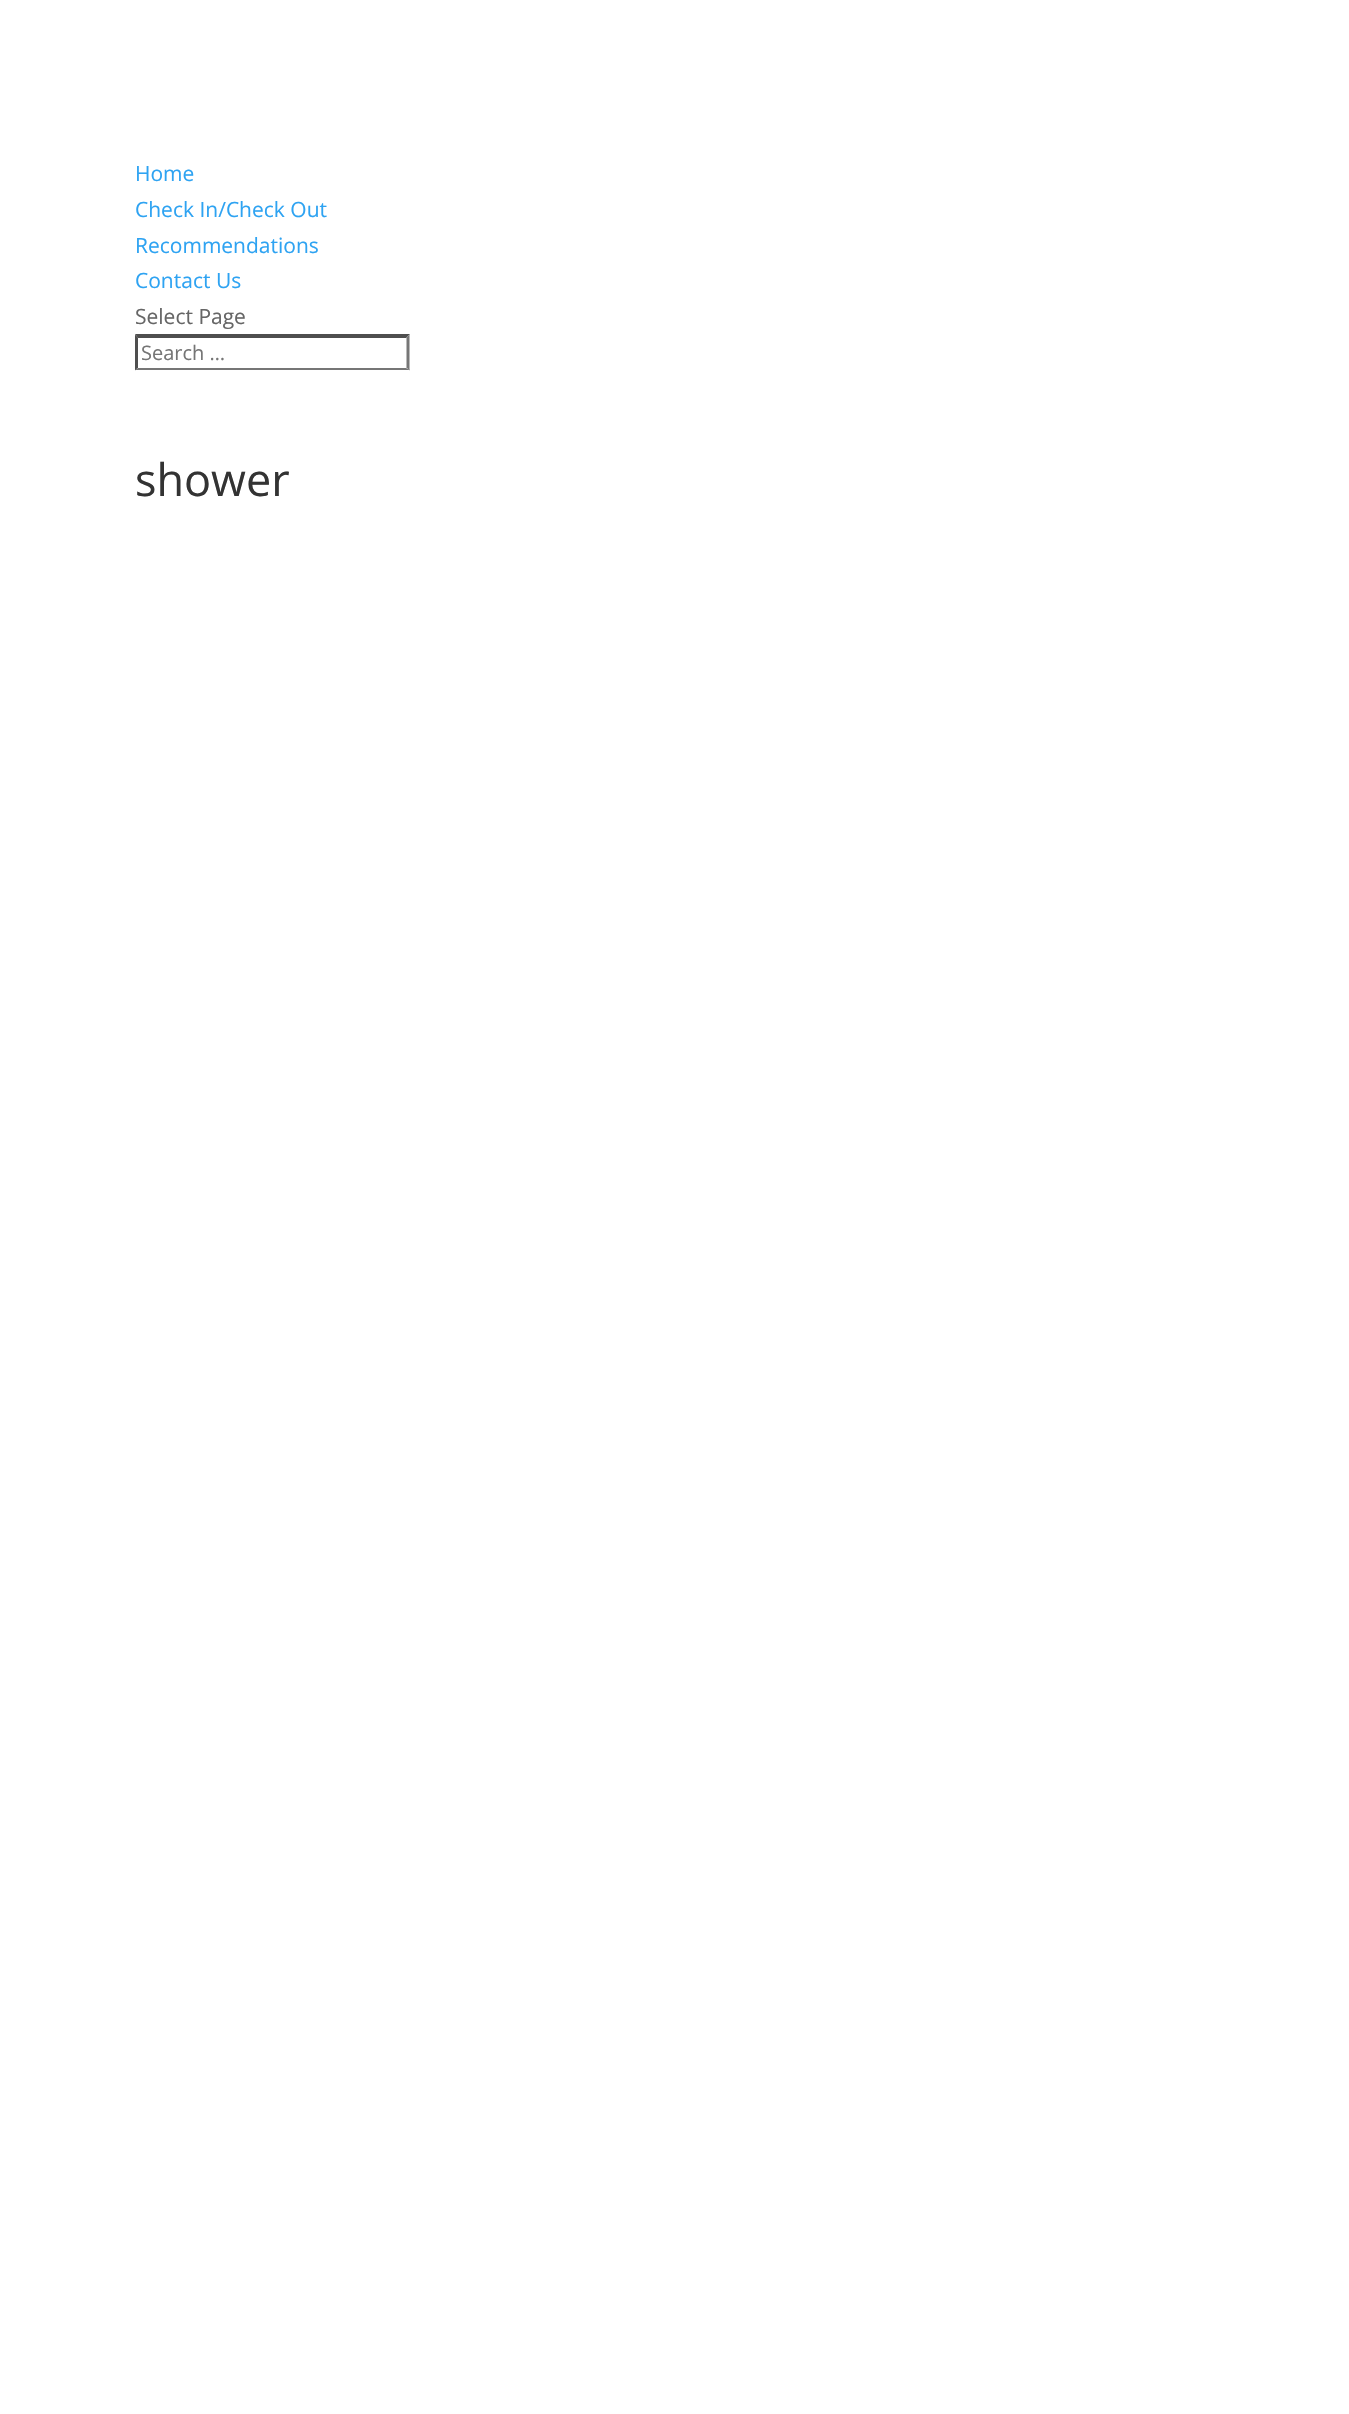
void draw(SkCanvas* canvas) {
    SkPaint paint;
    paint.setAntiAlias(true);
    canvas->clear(0xFFFFFFFF);
    SkFont font1(fontMgr->matchFamilyStyle("Open Sans", SkFontStyle::Normal()), 21);
    font1.setSubpixel(true);
    paint.setColor(0xFF2EA3F2);
    canvas->drawString("Home", 135, 181, font1, paint);
    canvas->drawString("Check In/Check Out", 135, 217, font1, paint);
    canvas->drawString("Recommendations", 135, 253, font1, paint);
    canvas->drawString("Contact Us", 135, 288, font1, paint);
    paint.setColor(0xFF666666);
    canvas->drawString("Select Page", 135, 324, font1, paint);
    paint.setColor(0xFF4F4F4F);
    canvas->drawPath(SkPathBuilder().moveTo(135, 334).lineTo(410, 334).lineTo(406, 338).lineTo(138, 338).close().detach(), paint);
    paint.setColor(0xFF767676);
    canvas->drawPath(SkPathBuilder().moveTo(409.5f, 334.5f).lineTo(409.5f, 370.5f).lineTo(406.5f, 367.5f).lineTo(406.5f, 337.5f).close().detach(), paint);
    canvas->drawPath(SkPathBuilder().moveTo(410, 370).lineTo(135, 370).lineTo(138, 368).lineTo(406, 368).close().detach(), paint);
    paint.setColor(0xFF4F4F4F);
    canvas->drawPath(SkPathBuilder().moveTo(135, 370.5f).lineTo(135, 334.5f).lineTo(138, 337.5f).lineTo(138, 367.5f).close().detach(), paint);
    SkFont font2(fontMgr->matchFamilyStyle("Open Sans", SkFontStyle::Normal()), 20);
    font2.setSubpixel(true);
    paint.setColor(0xFF757575);
    canvas->drawString("Search …", 141, 360, font2, paint);
    SkFont font3(fontMgr->matchFamilyStyle("Open Sans", SkFontStyle::Normal()), 45);
    font3.setSubpixel(true);
    paint.setColor(0xFF333333);
    canvas->drawString("shower", 135, 496, font3, paint);
}
